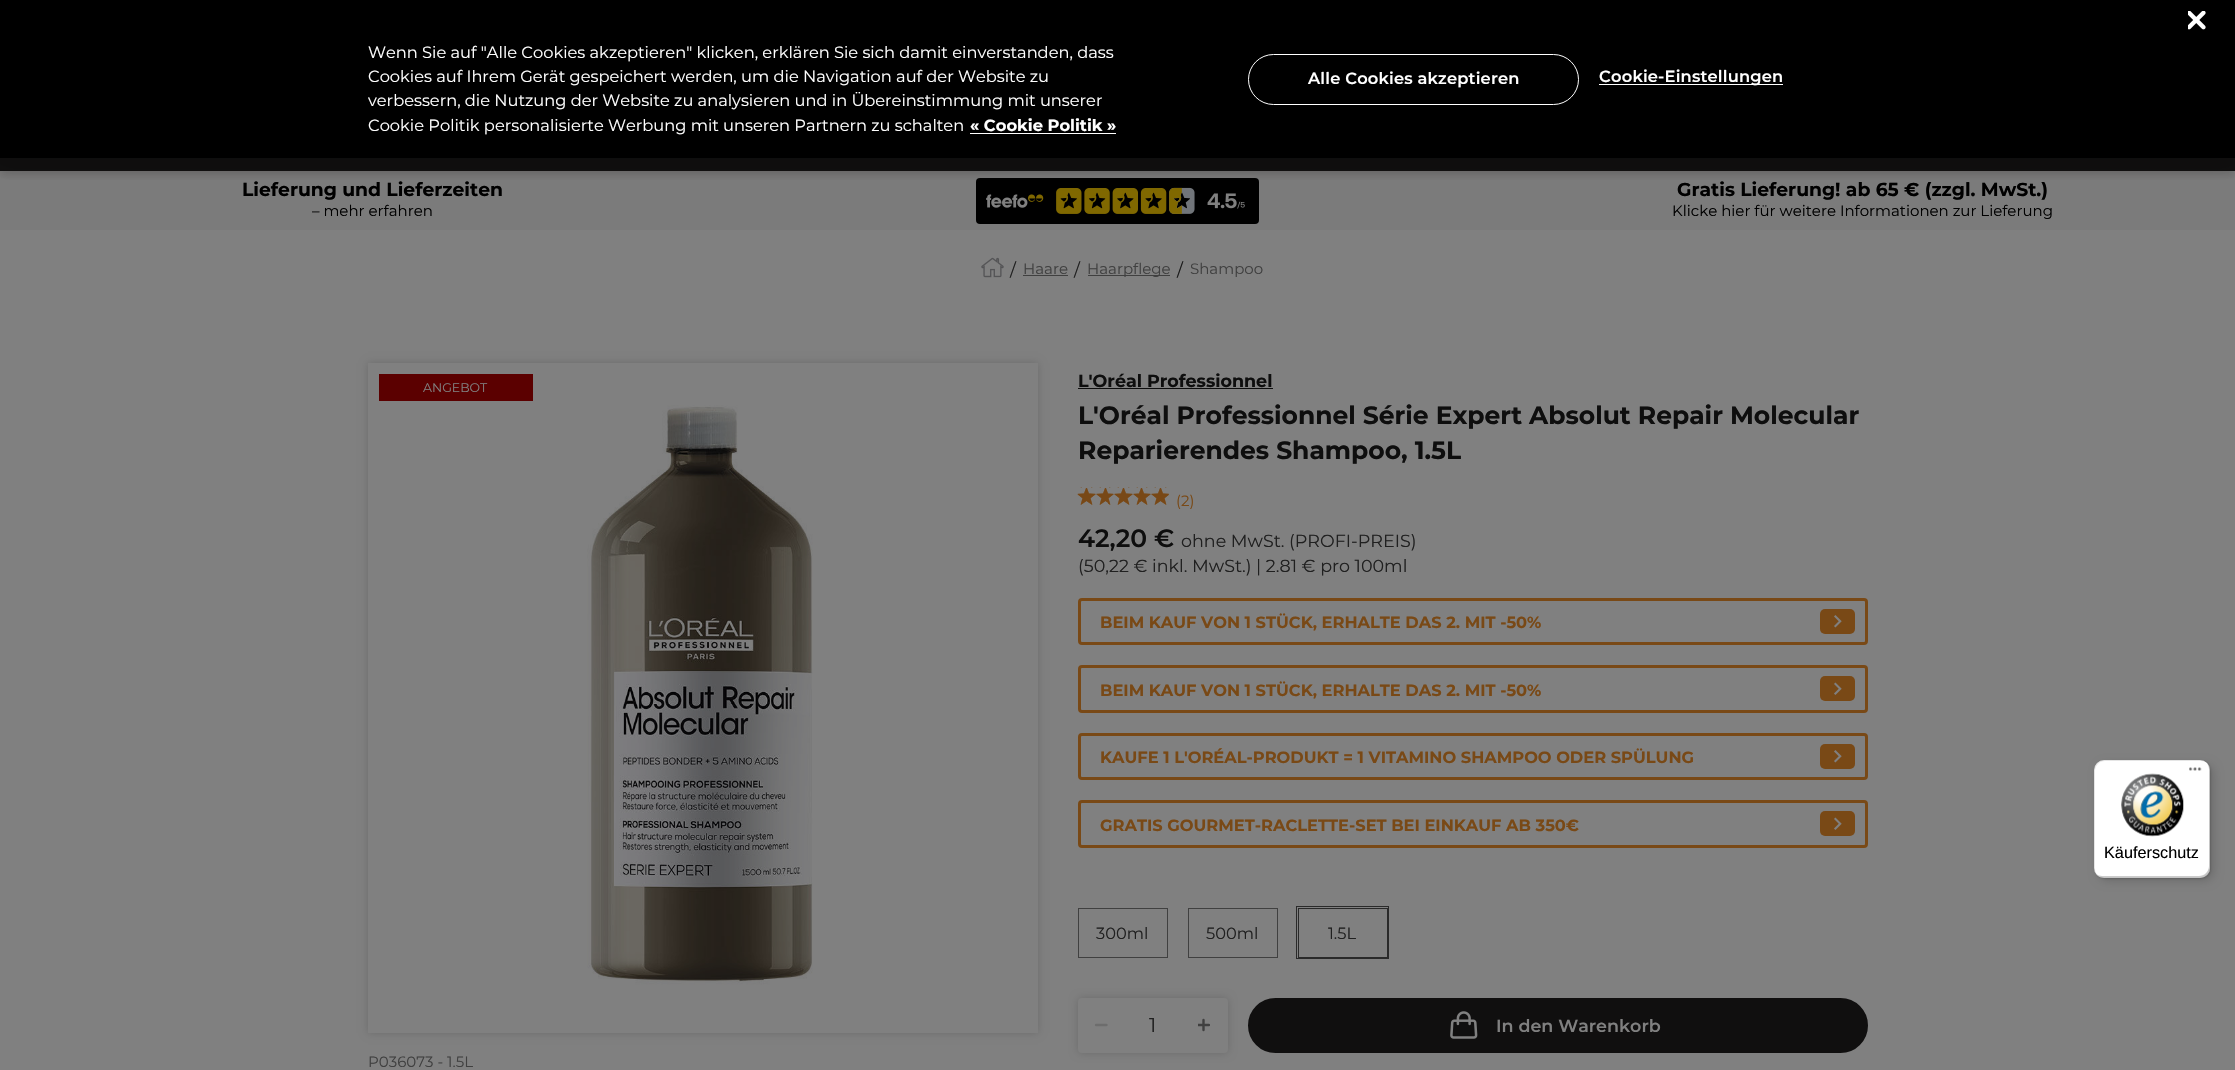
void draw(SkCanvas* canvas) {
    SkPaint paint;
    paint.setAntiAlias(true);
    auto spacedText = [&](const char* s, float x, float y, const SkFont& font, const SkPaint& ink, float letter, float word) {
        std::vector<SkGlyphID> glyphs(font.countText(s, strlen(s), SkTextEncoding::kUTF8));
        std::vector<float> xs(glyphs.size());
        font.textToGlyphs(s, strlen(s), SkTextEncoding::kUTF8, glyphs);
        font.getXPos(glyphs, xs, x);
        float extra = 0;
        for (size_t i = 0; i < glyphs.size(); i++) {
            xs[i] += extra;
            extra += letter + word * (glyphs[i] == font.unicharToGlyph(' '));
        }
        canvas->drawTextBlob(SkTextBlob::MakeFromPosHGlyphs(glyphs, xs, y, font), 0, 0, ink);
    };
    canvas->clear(0xFF808080);
    paint.setColor(0xFF100F0F);
    canvas->drawRect(SkRect::MakeXYWH(0, 158, 2235, 13), paint);
    paint.setColor(0xFF7B7B7B);
    canvas->drawRect(SkRect::MakeXYWH(0, 171, 2235, 59), paint);
    paint.setColor(0xFF000000);
    canvas->drawRoundRect(SkRect::MakeXYWH(976, 178, 283, 46), 4, 4, paint);
    canvas->drawImageRect(SkImages::DeferredFromEncodedData(SkData::MakeFromFileName("img2.png")), SkRect::MakeXYWH(986, 187, 259, 27), SkSamplingOptions());
    paint.setColor(0x33000000);
    paint.setMaskFilter(SkMaskFilter::MakeBlur(kNormal_SkBlurStyle, 11));
    canvas->drawRect(SkRect::MakeXYWH(0, 0, 2235, 158), paint);
    paint.setMaskFilter(nullptr);
    canvas->save();
    canvas->clipRect(SkRect::MakeXYWH(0, 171, 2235, 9));
    paint.setColor(0x29100F0F);
    paint.setMaskFilter(SkMaskFilter::MakeBlur(kNormal_SkBlurStyle, 4));
    canvas->drawRect(SkRect::MakeXYWH(0, 138, 2235, 37), paint);
    paint.setMaskFilter(nullptr);
    canvas->restore();
    paint.setColor(0xFF000000);
    canvas->drawRect(SkRect::MakeXYWH(0, 0, 2235, 158), paint);
    canvas->drawImageRect(SkImages::DeferredFromEncodedData(SkData::MakeFromFileName("img1.png")), SkRect::MakeXYWH(2188, 11, 18, 19), SkSamplingOptions());
    SkFont font1(fontMgr->matchFamilyStyle("Montserrat", SkFontStyle::Normal()), 16.25f);
    font1.setSubpixel(true);
    paint.setColor(0xFFFFFFFF);
    canvas->drawString("Wenn Sie auf \"Alle Cookies akzeptieren\" klicken, erklären Sie sich damit einverstanden, dass", 368, 58, font1, paint);
    canvas->drawString("Cookies auf Ihrem Gerät gespeichert werden, um die Navigation auf der Website zu", 368, 82, font1, paint);
    canvas->drawString("verbessern, die Nutzung der Website zu analysieren und in Übereinstimmung mit unserer", 368, 106, font1, paint);
    canvas->drawString("Cookie Politik personalisierte Werbung mit unseren Partnern zu schalten", 368, 131, font1, paint);
    SkFont font2(fontMgr->matchFamilyStyle("Montserrat", SkFontStyle::Bold()), 16.25f);
    font2.setSubpixel(true);
    canvas->drawString("« Cookie Politik »", 970, 131, font2, paint);
    canvas->drawRect(SkRect::MakeXYWH(970, 133, 146, 1), paint);
    paint.setStyle(SkPaint::kStroke_Style);
    paint.setStrokeWidth(1);
    canvas->drawRoundRect(SkRect::MakeXYWH(1248.5f, 54.5f, 330, 50), 25, 25, paint);
    SkFont font3(fontMgr->matchFamilyStyle("Montserrat", SkFontStyle(600, SkFontStyle::kNormal_Width, SkFontStyle::kUpright_Slant)), 16.25f);
    font3.setSubpixel(true);
    paint.setStyle(SkPaint::kFill_Style);
    spacedText("Alle Cookies akzeptieren", 1308, 84, font3, paint, 0.2f, 0);
    canvas->drawRect(SkRect::MakeXYWH(1599, 84, 184, 1), paint);
    spacedText("Cookie-Einstellungen", 1599, 82, font3, paint, 0.2f, 0);
    SkFont font4(fontMgr->matchFamilyStyle("Montserrat", SkFontStyle::Bold()), 18.75f);
    font4.setSubpixel(true);
    paint.setColor(0xFF000000);
    canvas->drawString("Lieferung und Lieferzeiten", 242, 196, font4, paint);
    SkFont font5(fontMgr->matchFamilyStyle("Montserrat", SkFontStyle::Normal()), 15);
    font5.setSubpixel(true);
    canvas->drawString("– mehr erfahren", 312, 216, font5, paint);
    canvas->drawString("Gratis Lieferung! ab 65 € (zzgl. MwSt.)", 1677, 196, font4, paint);
    canvas->drawString("Klicke hier für weitere Informationen zur Lieferung", 1672, 216, font5, paint);
    canvas->drawImageRect(SkImages::DeferredFromEncodedData(SkData::MakeFromFileName("img3.png")), SkRect::MakeXYWH(981, 257, 23, 21), SkSamplingOptions());
    SkFont font6(fontMgr->matchFamilyStyle("Montserrat", SkFontStyle::Normal()), 17.5f);
    font6.setSubpixel(true);
    paint.setColor(0xFF202020);
    canvas->drawString("/", 1010, 276, font6, paint);
    paint.setColor(0xFF404040);
    canvas->drawString("Haare", 1023, 274, font5, paint);
    canvas->drawRect(SkRect::MakeXYWH(1023, 275, 45, 1), paint);
    paint.setColor(0xFF202020);
    canvas->drawString("/", 1074, 276, font6, paint);
    paint.setColor(0xFF404040);
    canvas->drawRect(SkRect::MakeXYWH(1088, 275, 82, 1), paint);
    canvas->drawString("Haarpflege", 1087, 274, font5, paint);
    paint.setColor(0xFF1A1A1A);
    canvas->drawString("/", 1177, 276, font6, paint);
    paint.setColor(0xFF404040);
    canvas->drawString("Shampoo", 1190, 274, font5, paint);
    paint.setColor(0x29000000);
    paint.setMaskFilter(SkMaskFilter::MakeBlur(kNormal_SkBlurStyle, 4));
    canvas->drawRect(SkRect::MakeXYWH(368, 363, 670, 670), paint);
    paint.setMaskFilter(nullptr);
    canvas->drawImageRect(SkImages::DeferredFromEncodedData(SkData::MakeFromFileName("img4.png")), SkRect::MakeXYWH(368, 363, 670, 670), SkSamplingOptions());
    paint.setColor(0xFF5B0000);
    canvas->drawRect(SkRect::MakeXYWH(379, 374, 154, 27), paint);
    SkFont font7(fontMgr->matchFamilyStyle("Montserrat", SkFontStyle::Normal()), 12.5f);
    font7.setSubpixel(true);
    paint.setColor(0xFF808080);
    canvas->drawString("ANGEBOT", 423, 392, font7, paint);
    paint.setColor(0xFF404040);
    canvas->drawString("P036073 - 1.5L", 368, 1067, font5, paint);
    SkFont font8(fontMgr->matchFamilyStyle("Montserrat", SkFontStyle::Bold()), 17.5f);
    font8.setSubpixel(true);
    paint.setColor(0xFF0E0E0E);
    canvas->drawString("L'Oréal Professionnel", 1078, 387, font8, paint);
    canvas->drawRect(SkRect::MakeXYWH(1078, 388, 195, 1), paint);
    SkFont font9(fontMgr->matchFamilyStyle("Montserrat", SkFontStyle::Bold()), 25);
    font9.setSubpixel(true);
    canvas->drawString("L'Oréal Professionnel Série Expert Absolut Repair Molecular", 1078, 424, font9, paint);
    canvas->drawString("Reparierendes Shampoo, 1.5L", 1078, 459, font9, paint);
    canvas->drawImageRect(SkImages::DeferredFromEncodedData(SkData::MakeFromFileName("img5.png")), SkRect::MakeXYWH(1077, 487, 92, 18), SkSamplingOptions());
    canvas->drawImageRect(SkImages::DeferredFromEncodedData(SkData::MakeFromFileName("img6.png")), SkRect::MakeXYWH(1077, 487, 92, 18), SkSamplingOptions());
    paint.setColor(0xFF794916);
    canvas->drawString("(2)", 1176, 506, font5, paint);
    SkFont font10(fontMgr->matchFamilyStyle("Montserrat", SkFontStyle(600, SkFontStyle::kNormal_Width, SkFontStyle::kUpright_Slant)), 25);
    font10.setSubpixel(true);
    paint.setColor(0xFF0E0E0E);
    canvas->drawString("42,20 €", 1078, 547, font10, paint);
    paint.setColor(0xFF202020);
    canvas->drawString("ohne MwSt. (PROFI-PREIS)", 1181, 547, font6, paint);
    canvas->drawString("(50,22 € inkl. MwSt.) | 2.81 € pro 100ml", 1078, 572, font6, paint);
    paint.setStyle(SkPaint::kStroke_Style);
    paint.setStrokeWidth(3);
    paint.setColor(0xFF794916);
    canvas->drawRoundRect(SkRect::MakeXYWH(1079.5f, 599.5f, 787, 44), 2.5f, 2.5f, paint);
    paint.setStyle(SkPaint::kFill_Style);
    canvas->drawString("BEIM KAUF VON 1 STÜCK, ERHALTE DAS 2. MIT -50%", 1100, 628, font2, paint);
    canvas->drawRoundRect(SkRect::MakeXYWH(1820, 609, 35, 25), 5, 5, paint);
    canvas->drawImageRect(SkImages::DeferredFromEncodedData(SkData::MakeFromFileName("img7.png")), SkRect::MakeXYWH(1834, 615, 8, 13), SkSamplingOptions());
    paint.setStyle(SkPaint::kStroke_Style);
    canvas->drawRoundRect(SkRect::MakeXYWH(1079.5f, 666.5f, 787, 45), 2.5f, 2.5f, paint);
    paint.setStyle(SkPaint::kFill_Style);
    canvas->drawString("BEIM KAUF VON 1 STÜCK, ERHALTE DAS 2. MIT -50%", 1100, 696, font2, paint);
    canvas->drawRoundRect(SkRect::MakeXYWH(1820, 676, 35, 25), 5, 5, paint);
    canvas->drawImageRect(SkImages::DeferredFromEncodedData(SkData::MakeFromFileName("img8.png")), SkRect::MakeXYWH(1834, 682, 8, 13), SkSamplingOptions());
    paint.setStyle(SkPaint::kStroke_Style);
    canvas->drawRoundRect(SkRect::MakeXYWH(1079.5f, 734.5f, 787, 44), 2.5f, 2.5f, paint);
    paint.setStyle(SkPaint::kFill_Style);
    canvas->drawString("KAUFE 1 L'ORÉAL-PRODUKT = 1 VITAMINO SHAMPOO ODER SPÜLUNG", 1100, 763, font2, paint);
    canvas->drawRoundRect(SkRect::MakeXYWH(1820, 744, 35, 25), 5, 5, paint);
    canvas->drawImageRect(SkImages::DeferredFromEncodedData(SkData::MakeFromFileName("img7.png")), SkRect::MakeXYWH(1834, 750, 8, 13), SkSamplingOptions());
    paint.setStyle(SkPaint::kStroke_Style);
    canvas->drawRoundRect(SkRect::MakeXYWH(1079.5f, 801.5f, 787, 45), 2.5f, 2.5f, paint);
    paint.setStyle(SkPaint::kFill_Style);
    canvas->drawString("GRATIS GOURMET-RACLETTE-SET BEI EINKAUF AB 350€", 1100, 831, font2, paint);
    canvas->drawRoundRect(SkRect::MakeXYWH(1820, 811, 35, 25), 5, 5, paint);
    canvas->drawImageRect(SkImages::DeferredFromEncodedData(SkData::MakeFromFileName("img8.png")), SkRect::MakeXYWH(1834, 817, 8, 13), SkSamplingOptions());
    paint.setStyle(SkPaint::kStroke_Style);
    paint.setStrokeWidth(1);
    paint.setColor(0xFF404040);
    canvas->drawRect(SkRect::MakeXYWH(1078.5f, 908.5f, 89, 49), paint);
    paint.setStyle(SkPaint::kFill_Style);
    paint.setColor(0xFF202020);
    canvas->drawString("300ml", 1096, 939, font1, paint);
    paint.setStyle(SkPaint::kStroke_Style);
    paint.setColor(0xFF404040);
    canvas->drawRect(SkRect::MakeXYWH(1188.5f, 908.5f, 89, 49), paint);
    paint.setStyle(SkPaint::kFill_Style);
    paint.setColor(0xFF202020);
    canvas->drawString("500ml", 1206, 939, font1, paint);
    paint.setStyle(SkPaint::kStroke_Style);
    paint.setColor(0xFF2A2A2A);
    canvas->drawRect(SkRect::MakeXYWH(1298.5f, 908.5f, 89, 49), paint);
    canvas->drawRect(SkRect::MakeXYWH(1296.5f, 906.5f, 92, 52), paint);
    paint.setStyle(SkPaint::kFill_Style);
    paint.setColor(0xFF202020);
    canvas->drawString("1.5L", 1328, 939, font1, paint);
    paint.setColor(0x29000000);
    paint.setMaskFilter(SkMaskFilter::MakeBlur(kNormal_SkBlurStyle, 4));
    canvas->drawRoundRect(SkRect::MakeXYWH(1078, 998, 150, 55), 4, 4, paint);
    paint.setMaskFilter(nullptr);
    paint.setColor(0xFF808080);
    canvas->drawRoundRect(SkRect::MakeXYWH(1078, 998, 150, 55), 4, 4, paint);
    paint.setStyle(SkPaint::kStroke_Style);
    paint.setStrokeWidth(2.4f);
    paint.setStrokeCap(SkPaint::kRound_Cap);
    paint.setColor(0xFF6D6D6D);
    canvas->drawPath(SkPathBuilder().moveTo(1096, 1025).lineTo(1106.5f, 1025).detach(), paint);
    SkFont font11(fontMgr->matchFamilyStyle("Montserrat", SkFontStyle::Normal()), 20);
    font11.setSubpixel(true);
    paint.setStyle(SkPaint::kFill_Style);
    paint.setColor(0xFF202020);
    canvas->drawString("1", 1149, 1032, font11, paint);
    canvas->save();
    canvas->clipRect(SkRect::MakeXYWH(1198, 1019, 12, 12));
    paint.setStyle(SkPaint::kStroke_Style);
    paint.setColor(0xFF404040);
    canvas->drawPath(SkPathBuilder().moveTo(1198.5f, 1025).lineTo(1209, 1025).detach(), paint);
    canvas->restore();
    canvas->drawPath(SkPathBuilder().moveTo(1203.5f, 1030).lineTo(1203.5f, 1020).detach(), paint);
    paint.setStyle(SkPaint::kFill_Style);
    paint.setColor(0xFF100F0F);
    canvas->drawRoundRect(SkRect::MakeXYWH(1249.5f, 999.5f, 617, 52), 26, 26, paint);
    paint.setStyle(SkPaint::kStroke_Style);
    paint.setStrokeWidth(3);
    paint.setStrokeCap(SkPaint::kButt_Cap);
    canvas->drawRoundRect(SkRect::MakeXYWH(1249.5f, 999.5f, 617, 52), 26, 26, paint);
    canvas->drawImageRect(SkImages::DeferredFromEncodedData(SkData::MakeFromFileName("img9.png")), SkRect::MakeXYWH(1450, 1011, 28, 28), SkSamplingOptions());
    SkFont font12(fontMgr->matchFamilyStyle("Montserrat", SkFontStyle(600, SkFontStyle::kNormal_Width, SkFontStyle::kUpright_Slant)), 17.5f);
    font12.setSubpixel(true);
    paint.setStyle(SkPaint::kFill_Style);
    paint.setColor(0xFF808080);
    canvas->drawString("In den Warenkorb", 1496, 1032, font12, paint);
    paint.setColor(0x26000000);
    paint.setMaskFilter(SkMaskFilter::MakeBlur(kNormal_SkBlurStyle, 5));
    canvas->drawRoundRect(SkRect::MakeXYWH(2098, 764, 116, 117), 10, 10, paint);
    paint.setMaskFilter(nullptr);
    paint.setMaskFilter(SkMaskFilter::MakeBlur(kNormal_SkBlurStyle, 1));
    canvas->drawRoundRect(SkRect::MakeXYWH(2095, 761, 116, 118), 10, 10, paint);
    paint.setMaskFilter(nullptr);
    paint.setColor(0xFFFFFFFF);
    canvas->drawRoundRect(SkRect::MakeXYWH(2094, 760, 116, 118), 10, 10, paint);
    paint.setColor(0x1A000000);
    canvas->drawPath(SkPathBuilder().moveTo(2105, 761).lineTo(2201, 761).cubicTo(2204, 761, 2206, 762, 2208, 763).cubicTo(2206, 761, 2203, 760, 2200, 760).lineTo(2104, 760).cubicTo(2098, 760, 2094, 764, 2094, 770).lineTo(2094, 868).cubicTo(2094, 871, 2095, 874, 2098, 876).cubicTo(2096, 874, 2095, 871, 2095, 869).lineTo(2095, 771).cubicTo(2095, 766, 2099, 761, 2105, 761).close().detach(), paint);
    paint.setColor(0x33000000);
    canvas->drawPath(SkPathBuilder().moveTo(2096, 874).cubicTo(2098, 876, 2101, 878, 2104, 878).lineTo(2200, 878).cubicTo(2206, 878, 2210, 874, 2210, 868).lineTo(2210, 770).cubicTo(2210, 767, 2209, 764, 2207, 762).cubicTo(2208, 764, 2209, 766, 2209, 769).lineTo(2209, 866).cubicTo(2209, 872, 2204, 876, 2199, 876).lineTo(2102, 876).cubicTo(2100, 876, 2098, 875, 2096, 874).close().detach(), paint);
    paint.setColor(0x33323232);
    canvas->drawPath(SkPathBuilder().moveTo(2096, 875).cubicTo(2098, 877, 2101, 878, 2104, 878).lineTo(2200, 878).cubicTo(2206, 878, 2210, 874, 2210, 868).lineTo(2210, 770).cubicTo(2210, 767, 2209, 764, 2206, 762).cubicTo(2208, 764, 2209, 767, 2209, 769).lineTo(2209, 867).cubicTo(2209, 872, 2205, 877, 2199, 877).lineTo(2103, 877).cubicTo(2100, 877, 2098, 876, 2096, 875).close().detach(), paint);
    paint.setColor(0x4DFFFFFF);
    canvas->drawPath(SkPathBuilder().moveTo(2095, 873).cubicTo(2097, 876, 2100, 878, 2104, 878).lineTo(2200, 878).cubicTo(2206, 878, 2210, 874, 2210, 868).lineTo(2210, 770).cubicTo(2210, 767, 2209, 764, 2206, 762).cubicTo(2208, 764, 2209, 767, 2209, 769).lineTo(2209, 867).cubicTo(2209, 872, 2205, 877, 2199, 877).lineTo(2103, 877).cubicTo(2100, 877, 2097, 875, 2095, 873).close().detach(), paint);
    canvas->drawImageRect(SkImages::DeferredFromEncodedData(SkData::MakeFromFileName("img10.png")), SkRect::MakeXYWH(2189, 767, 13, 4), SkSamplingOptions());
    canvas->drawImageRect(SkImages::DeferredFromEncodedData(SkData::MakeFromFileName("img11.png")), SkRect::MakeXYWH(2121, 773, 63, 64), SkSamplingOptions());
    SkFont font13(fontMgr->matchFamilyStyle("Liberation Sans", SkFontStyle::Normal()), 16.25f);
    font13.setSubpixel(true);
    paint.setColor(0xFF000000);
    canvas->drawString("Käuferschutz", 2104, 858, font13, paint);
}
